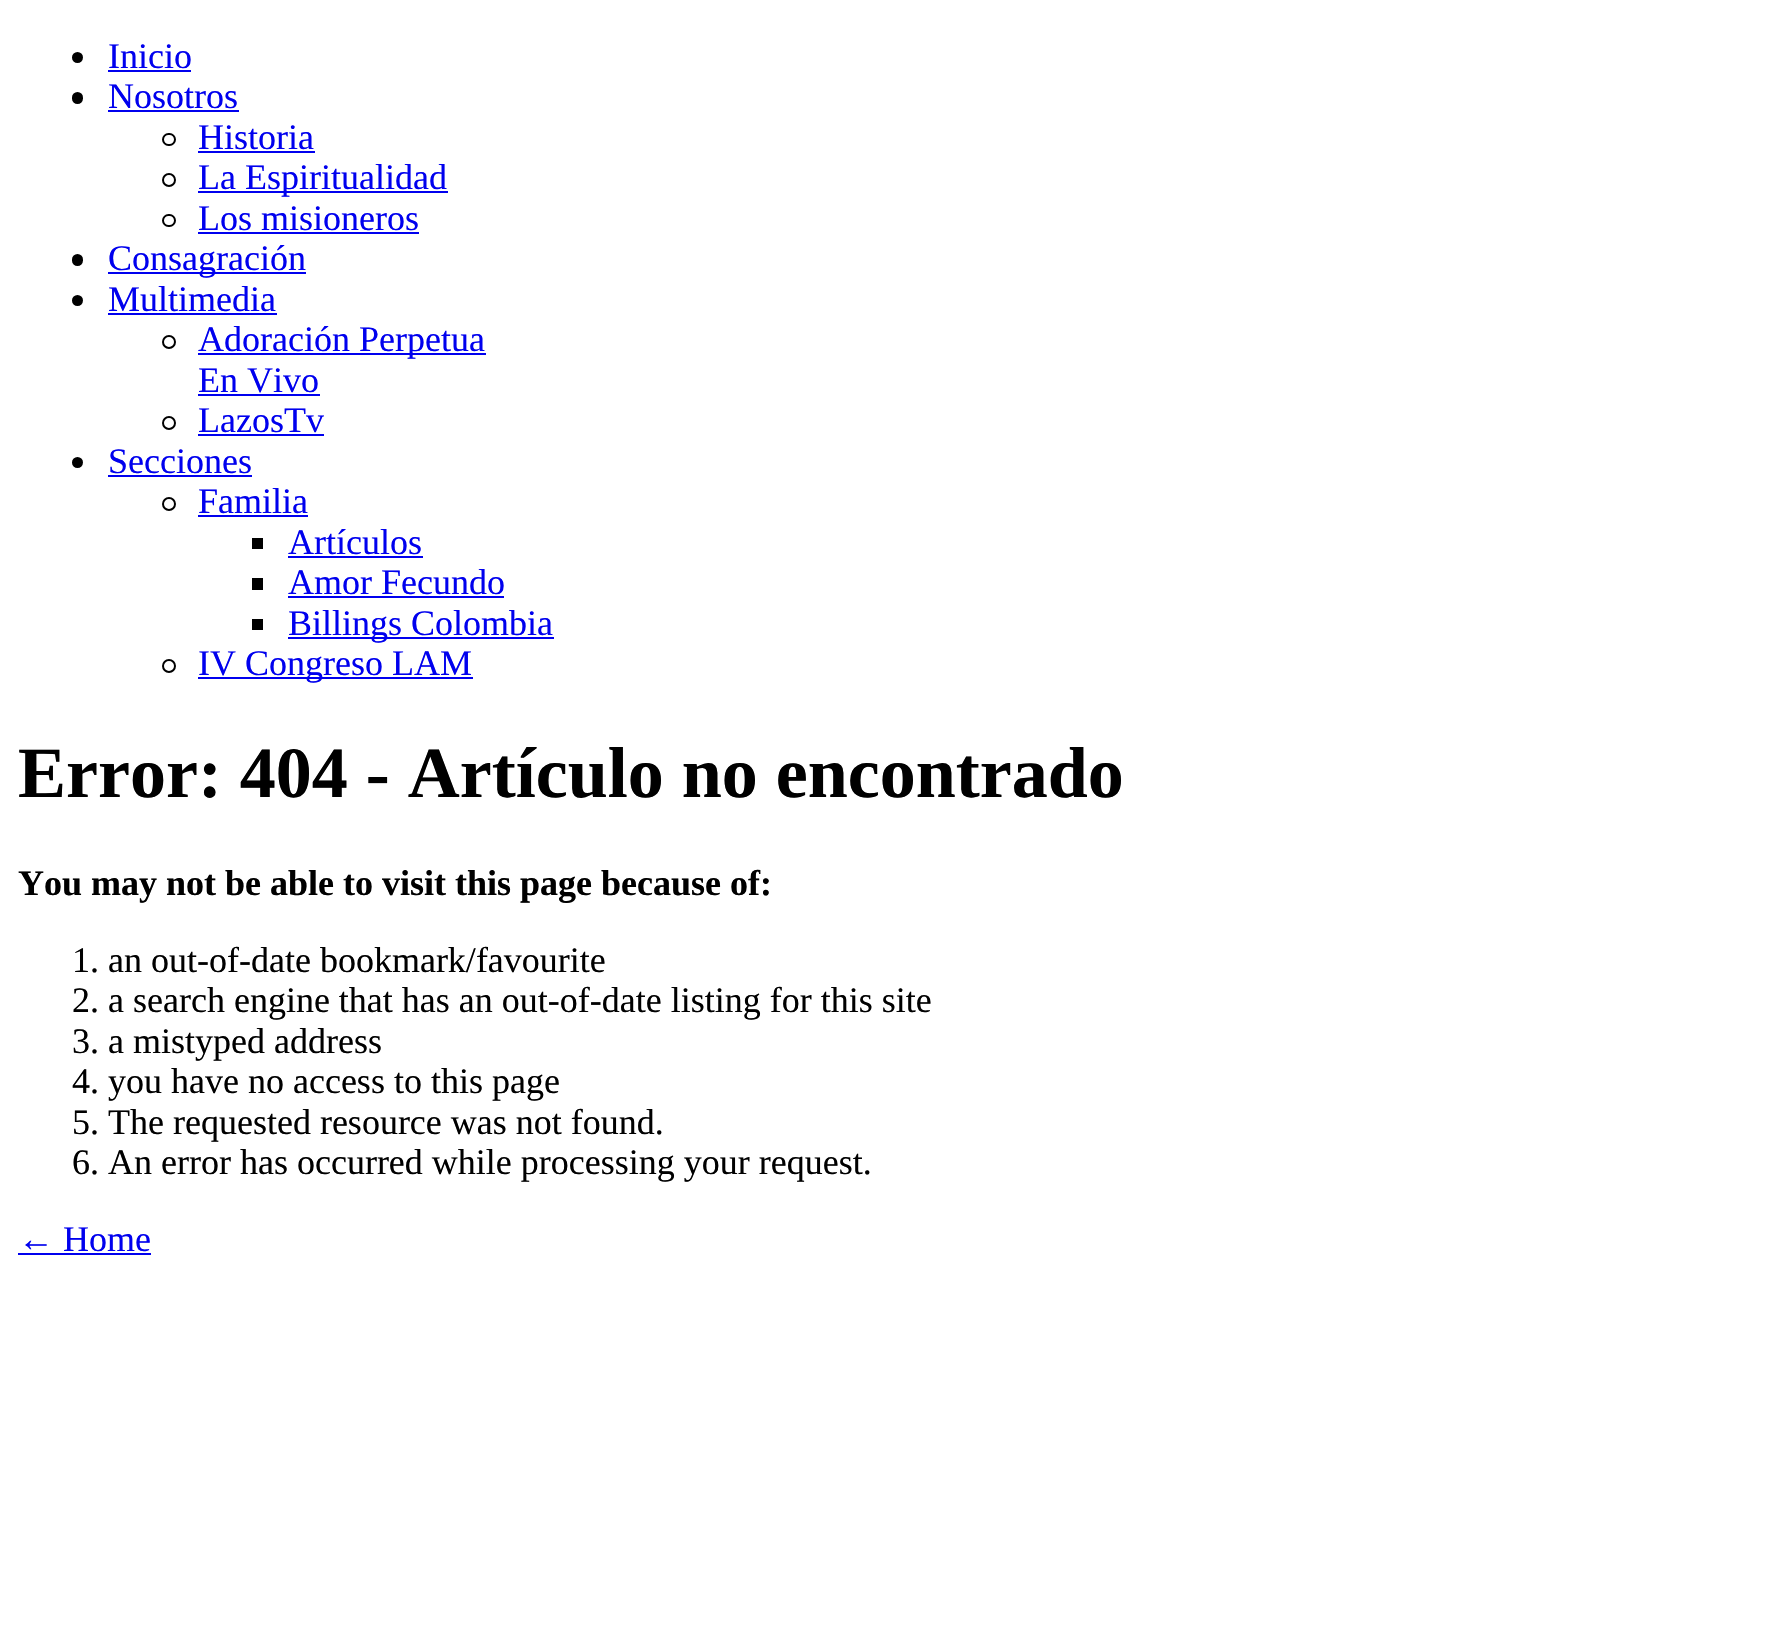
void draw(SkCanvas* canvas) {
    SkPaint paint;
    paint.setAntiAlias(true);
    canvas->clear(0xFFFFFFFF);
    paint.setColor(0xFF000000);
    canvas->drawCircle(77.5f, 57.5f, 5.5f, paint);
    SkFont font1(fontMgr->matchFamilyStyle("Liberation Serif", SkFontStyle::Normal()), 36);
    font1.setSubpixel(true);
    paint.setColor(0xFF0000EE);
    canvas->drawString("Inicio", 108, 68, font1, paint);
    canvas->drawRect(SkRect::MakeXYWH(108, 70, 83, 2), paint);
    paint.setColor(0xFF000000);
    canvas->drawRoundRect(SkRect::MakeXYWH(72, 92, 11, 12), 5.5f, 5.5f, paint);
    paint.setColor(0xFF0000EE);
    canvas->drawString("Nosotros", 108, 108, font1, paint);
    canvas->drawRect(SkRect::MakeXYWH(108, 110, 131, 2), paint);
    paint.setStyle(SkPaint::kStroke_Style);
    paint.setStrokeWidth(2);
    paint.setColor(0xFF000000);
    canvas->drawRoundRect(SkRect::MakeXYWH(163, 134, 12, 11), 5.5f, 5.5f, paint);
    paint.setStyle(SkPaint::kFill_Style);
    paint.setColor(0xFF0000EE);
    canvas->drawString("Historia", 198, 149, font1, paint);
    canvas->drawRect(SkRect::MakeXYWH(198, 151, 117, 2), paint);
    paint.setStyle(SkPaint::kStroke_Style);
    paint.setColor(0xFF000000);
    canvas->drawCircle(169, 180, 6, paint);
    paint.setStyle(SkPaint::kFill_Style);
    paint.setColor(0xFF0000EE);
    canvas->drawRect(SkRect::MakeXYWH(198, 191, 250, 2), paint);
    canvas->drawString("La Espiritualidad", 198, 189, font1, paint);
    paint.setStyle(SkPaint::kStroke_Style);
    paint.setColor(0xFF000000);
    canvas->drawRoundRect(SkRect::MakeXYWH(163, 215, 12, 11), 5.5f, 5.5f, paint);
    paint.setStyle(SkPaint::kFill_Style);
    paint.setColor(0xFF0000EE);
    canvas->drawString("Los misioneros", 198, 230, font1, paint);
    canvas->drawRect(SkRect::MakeXYWH(198, 232, 221, 2), paint);
    paint.setColor(0xFF000000);
    canvas->drawRoundRect(SkRect::MakeXYWH(72, 254, 11, 12), 5.5f, 5.5f, paint);
    paint.setColor(0xFF0000EE);
    canvas->drawRect(SkRect::MakeXYWH(108, 272, 198, 2), paint);
    canvas->drawString("Consagración", 108, 270, font1, paint);
    paint.setColor(0xFF000000);
    canvas->drawCircle(77.5f, 300.5f, 5.5f, paint);
    paint.setColor(0xFF0000EE);
    canvas->drawString("Multimedia", 108, 311, font1, paint);
    canvas->drawRect(SkRect::MakeXYWH(108, 313, 169, 2), paint);
    paint.setStyle(SkPaint::kStroke_Style);
    paint.setColor(0xFF000000);
    canvas->drawCircle(169, 342, 6, paint);
    paint.setStyle(SkPaint::kFill_Style);
    paint.setColor(0xFF0000EE);
    canvas->drawRect(SkRect::MakeXYWH(198, 353, 288, 2), paint);
    canvas->drawString("Adoración Perpetua", 198, 351, font1, paint);
    canvas->drawString("En Vivo", 198, 392, font1, paint);
    canvas->drawRect(SkRect::MakeXYWH(198, 394, 122, 2), paint);
    paint.setStyle(SkPaint::kStroke_Style);
    paint.setColor(0xFF000000);
    canvas->drawCircle(169, 423, 6, paint);
    paint.setStyle(SkPaint::kFill_Style);
    paint.setColor(0xFF0000EE);
    canvas->drawString("LazosTv", 198, 432, font1, paint);
    canvas->drawRect(SkRect::MakeXYWH(198, 434, 126, 2), paint);
    paint.setColor(0xFF000000);
    canvas->drawCircle(77.5f, 462.5f, 5.5f, paint);
    paint.setColor(0xFF0000EE);
    canvas->drawString("Secciones", 108, 473, font1, paint);
    canvas->drawRect(SkRect::MakeXYWH(108, 475, 144, 2), paint);
    paint.setStyle(SkPaint::kStroke_Style);
    paint.setColor(0xFF000000);
    canvas->drawCircle(169, 504, 6, paint);
    paint.setStyle(SkPaint::kFill_Style);
    paint.setColor(0xFF0000EE);
    canvas->drawString("Familia", 198, 513, font1, paint);
    canvas->drawRect(SkRect::MakeXYWH(198, 515, 110, 2), paint);
    paint.setColor(0xFF000000);
    canvas->drawRect(SkRect::MakeXYWH(252, 538, 11, 11), paint);
    paint.setColor(0xFF0000EE);
    canvas->drawString("Artículos", 288, 554, font1, paint);
    canvas->drawRect(SkRect::MakeXYWH(288, 556, 135, 2), paint);
    paint.setColor(0xFF000000);
    canvas->drawRect(SkRect::MakeXYWH(252, 578, 11, 12), paint);
    paint.setColor(0xFF0000EE);
    canvas->drawString("Amor Fecundo", 288, 594, font1, paint);
    canvas->drawRect(SkRect::MakeXYWH(288, 596, 216, 2), paint);
    paint.setColor(0xFF000000);
    canvas->drawRect(SkRect::MakeXYWH(252, 619, 11, 11), paint);
    paint.setColor(0xFF0000EE);
    canvas->drawRect(SkRect::MakeXYWH(288, 637, 266, 2), paint);
    canvas->drawString("Billings Colombia", 288, 635, font1, paint);
    paint.setStyle(SkPaint::kStroke_Style);
    paint.setColor(0xFF000000);
    canvas->drawCircle(169, 666, 6, paint);
    paint.setStyle(SkPaint::kFill_Style);
    paint.setColor(0xFF0000EE);
    canvas->drawRect(SkRect::MakeXYWH(198, 677, 275, 2), paint);
    canvas->drawString("IV Congreso LAM", 198, 675, font1, paint);
    SkFont font2(fontMgr->matchFamilyStyle("Liberation Serif", SkFontStyle::Bold()), 72);
    font2.setSubpixel(true);
    paint.setColor(0xFF000000);
    canvas->drawString("Error: 404 - Artículo no encontrado", 18, 797, font2, paint);
    SkFont font3(fontMgr->matchFamilyStyle("Liberation Serif", SkFontStyle::Bold()), 36);
    font3.setSubpixel(true);
    canvas->drawString("You may not be able to visit this page because of:", 18, 895, font3, paint);
    canvas->drawString("1. an out-of-date bookmark/favourite", 72, 972, font1, paint);
    canvas->drawString("2. a search engine that has an out-of-date listing for this site", 72, 1012, font1, paint);
    canvas->drawString("3. a mistyped address", 72, 1053, font1, paint);
    canvas->drawString("4. you have no access to this page", 72, 1093, font1, paint);
    canvas->drawString("5. The requested resource was not found.", 72, 1134, font1, paint);
    canvas->drawString("6. An error has occurred while processing your request.", 72, 1174, font1, paint);
    paint.setColor(0xFF0000EE);
    canvas->drawString("← Home", 18, 1251, font1, paint);
    canvas->drawRect(SkRect::MakeXYWH(18, 1253, 133, 2), paint);
}
